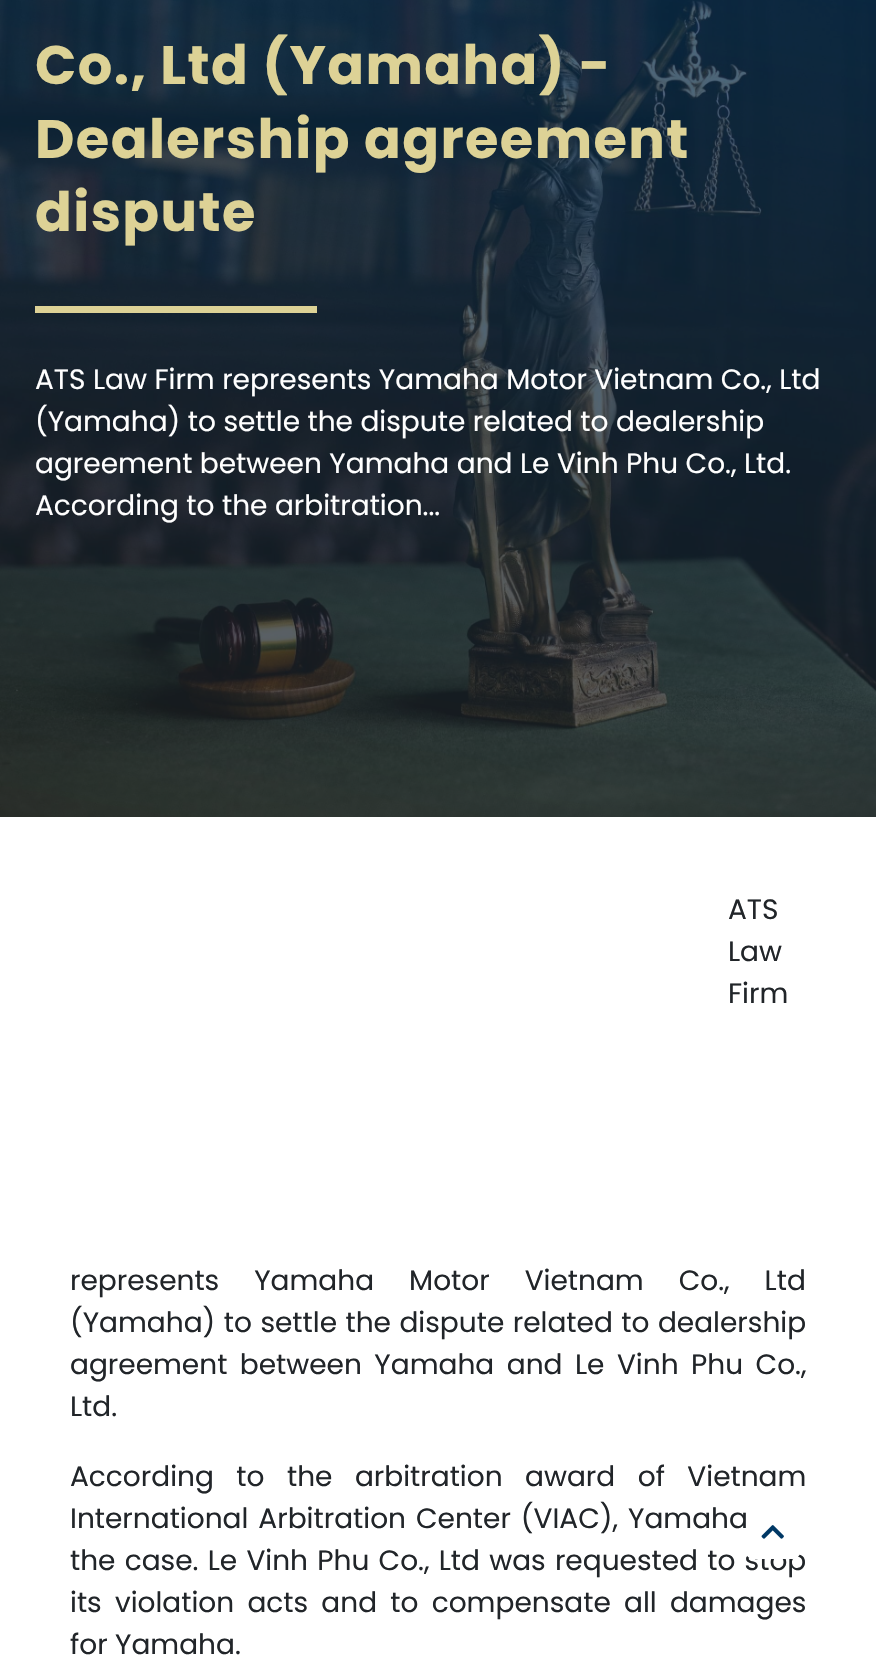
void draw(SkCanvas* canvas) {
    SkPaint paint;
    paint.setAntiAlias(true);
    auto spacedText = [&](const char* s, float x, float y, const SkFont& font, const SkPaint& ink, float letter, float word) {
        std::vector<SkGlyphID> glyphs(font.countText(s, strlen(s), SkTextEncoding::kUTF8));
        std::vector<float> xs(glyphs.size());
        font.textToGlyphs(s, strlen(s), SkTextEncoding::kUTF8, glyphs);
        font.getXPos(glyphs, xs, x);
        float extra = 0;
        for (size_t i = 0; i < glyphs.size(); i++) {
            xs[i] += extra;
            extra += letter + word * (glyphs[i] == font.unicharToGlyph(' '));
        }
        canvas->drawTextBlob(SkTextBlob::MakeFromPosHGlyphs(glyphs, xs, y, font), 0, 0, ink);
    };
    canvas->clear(0xFFFFFFFF);
    canvas->drawImageRect(SkImages::DeferredFromEncodedData(SkData::MakeFromFileName("img1.png")), SkRect::MakeXYWH(0, 0, 876, 817), SkSamplingOptions());
    SkFont font1(fontMgr->matchFamilyStyle("Poppins", SkFontStyle::Bold()), 54.25f);
    font1.setSubpixel(true);
    paint.setColor(0xFFDDD296);
    spacedText("Co., Ltd (Yamaha) -", 35, 84, font1, paint, 1.4f, 0);
    spacedText("Dealership agreement", 35, 158, font1, paint, 1.4f, 0);
    spacedText("dispute", 35, 231, font1, paint, 1.4f, 0);
    canvas->drawRect(SkRect::MakeXYWH(35, 306, 282, 7), paint);
    SkFont font2(fontMgr->matchFamilyStyle("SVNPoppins", SkFontStyle::Normal()), 28);
    font2.setSubpixel(true);
    paint.setColor(0xFFFFFFFF);
    canvas->drawString("ATS Law Firm represents Yamaha Motor Vietnam Co., Ltd", 35, 389, font2, paint);
    canvas->drawString("(Yamaha) to settle the dispute related to dealership", 35, 431, font2, paint);
    canvas->drawString("agreement between Yamaha and Le Vinh Phu Co., Ltd.", 35, 473, font2, paint);
    canvas->drawString("According to the arbitration...", 35, 515, font2, paint);
    paint.setColor(0xFF212529);
    canvas->drawString("ATS", 728, 919, font2, paint);
    canvas->drawString("Law", 728, 961, font2, paint);
    canvas->drawString("Firm", 728, 1003, font2, paint);
    spacedText("represents Yamaha Motor Vietnam Co., Ltd", 70, 1290, font2, paint, 0, 27.5f);
    spacedText("(Yamaha) to settle the dispute related to dealership", 70, 1332, font2, paint, 0, 1);
    spacedText("agreement between Yamaha and Le Vinh Phu Co.,", 70, 1374, font2, paint, 0, 5);
    canvas->drawString("Ltd.", 70, 1416, font2, paint);
    spacedText("According to the arbitration award of Vietnam", 70, 1486, font2, paint, 0, 15);
    spacedText("International Arbitration Center (VIAC), Yamaha", 70, 1528, font2, paint, 0, 2.5f);
    spacedText("the case. Le Vinh Phu Co., Ltd was requested to stop", 70, 1570, font2, paint, 0, 1.75f);
    spacedText("its violation acts and to compensate all damages", 70, 1612, font2, paint, 0, 5.75f);
    canvas->drawString("for Yamaha.", 70, 1654, font2, paint);
    paint.setColor(0xFFFFFFFF);
    canvas->drawRoundRect(SkRect::MakeXYWH(746, 1505, 54, 54), 7, 7, paint);
    canvas->drawImageRect(SkImages::DeferredFromEncodedData(SkData::MakeFromFileName("img2.png")), SkRect::MakeXYWH(761, 1525, 23, 14), SkSamplingOptions());
}
